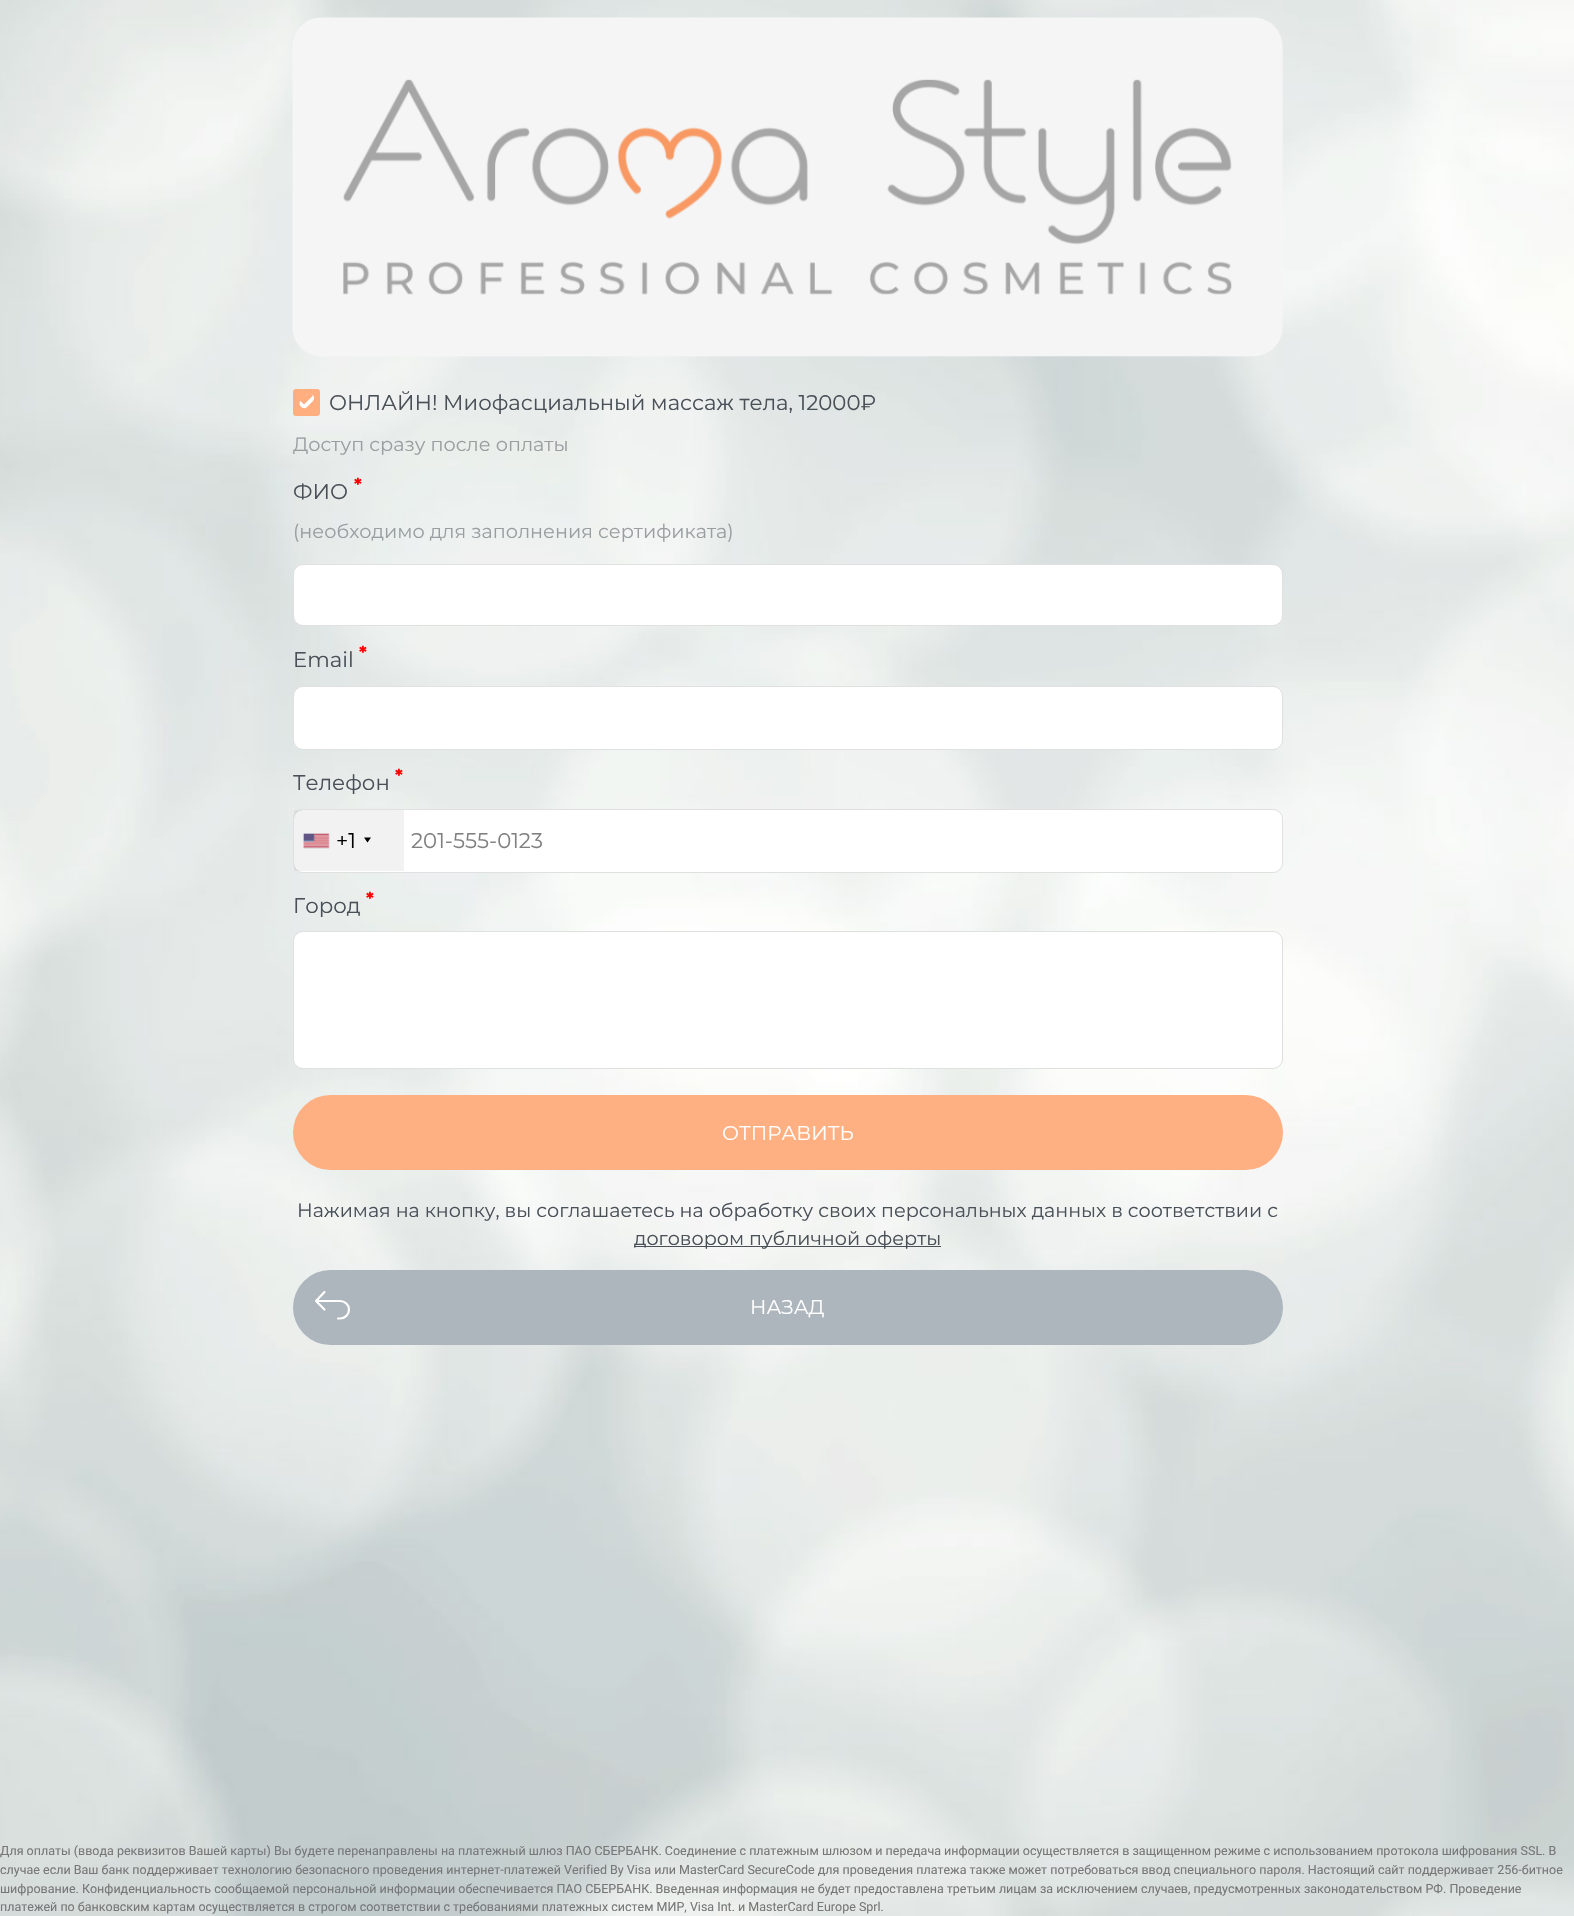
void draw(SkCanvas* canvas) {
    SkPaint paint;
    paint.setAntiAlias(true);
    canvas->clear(0xFFFFFFFF);
    canvas->drawImageRect(SkImages::DeferredFromEncodedData(SkData::MakeFromFileName("img1.png")), SkRect::MakeXYWH(0, 0, 1574, 1916), SkSamplingOptions());
    canvas->drawImageRect(SkImages::DeferredFromEncodedData(SkData::MakeFromFileName("img2.png")), SkRect::MakeXYWH(292, 17, 991, 340), SkSamplingOptions());
    paint.setColor(0xFFFFAE80);
    canvas->drawRoundRect(SkRect::MakeXYWH(293.5f, 389.5f, 26, 26), 2, 2, paint);
    paint.setStyle(SkPaint::kStroke_Style);
    paint.setStrokeWidth(1);
    canvas->drawRoundRect(SkRect::MakeXYWH(293.5f, 389.5f, 26, 26), 2, 2, paint);
    paint.setStyle(SkPaint::kFill_Style);
    paint.setColor(0xFFFFFFFF);
    canvas->drawPath(SkPathBuilder(SkPathFillType::kEvenOdd).moveTo(300.5f, 401).lineTo(306, 395.5f).lineTo(308, 394).cubicTo(312, 392, 316, 397.5f, 313, 401).cubicTo(311.5f, 402.5f, 307.5f, 407, 305.5f, 408).cubicTo(302, 409.5f, 297.5f, 404, 300.5f, 401).close().moveTo(300.5f, 401).lineTo(305, 396.5f).cubicTo(308, 393.5f, 309.5f, 392, 313, 395.5f).lineTo(304, 404.5f).close().detach(), paint);
    SkFont font1(fontMgr->matchFamilyStyle("Montserrat", SkFontStyle(100, SkFontStyle::kNormal_Width, SkFontStyle::kUpright_Slant)), 21.25f);
    font1.setSubpixel(true);
    paint.setColor(0xFF495057);
    canvas->drawString("ОНЛАЙН! Миофасциальный массаж тела, 12000₽", 329, 410, font1, paint);
    SkFont font2(fontMgr->matchFamilyStyle("Montserrat", SkFontStyle(100, SkFontStyle::kNormal_Width, SkFontStyle::kUpright_Slant)), 19.25f);
    font2.setSubpixel(true);
    paint.setColor(0xFF999FA1);
    canvas->drawString("Доступ сразу после оплаты", 293, 451, font2, paint);
    SkFont font3(fontMgr->matchFamilyStyle("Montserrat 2", SkFontStyle(100, SkFontStyle::kNormal_Width, SkFontStyle::kUpright_Slant)), 18);
    font3.setSubpixel(true);
    paint.setColor(0xFFFF0000);
    canvas->drawString("*", 354, 491, font3, paint);
    paint.setColor(0xFF495057);
    canvas->drawString("ФИО", 293, 499, font1, paint);
    paint.setColor(0xFF999FA1);
    canvas->drawString("(необходимо для заполнения сертификата)", 293, 538, font2, paint);
    paint.setColor(0xFFFFFFFF);
    canvas->drawRoundRect(SkRect::MakeXYWH(293, 564, 990, 62), 10, 10, paint);
    paint.setStyle(SkPaint::kStroke_Style);
    paint.setColor(0x1F000000);
    canvas->drawRoundRect(SkRect::MakeXYWH(293.5f, 564.5f, 989, 61), 9.5f, 9.5f, paint);
    paint.setStyle(SkPaint::kFill_Style);
    paint.setColor(0xFFFF0000);
    canvas->drawString("*", 359, 659, font3, paint);
    paint.setColor(0xFF495057);
    canvas->drawString("Email", 293, 667, font1, paint);
    paint.setColor(0xFFFFFFFF);
    canvas->drawRoundRect(SkRect::MakeXYWH(293, 686, 990, 64), 10, 10, paint);
    paint.setStyle(SkPaint::kStroke_Style);
    paint.setColor(0x1F000000);
    canvas->drawRoundRect(SkRect::MakeXYWH(293.5f, 686.5f, 989, 63), 9.5f, 9.5f, paint);
    paint.setStyle(SkPaint::kFill_Style);
    paint.setColor(0xFFFF0000);
    canvas->drawString("*", 395, 782, font3, paint);
    paint.setColor(0xFF495057);
    canvas->drawString("Телефон", 293, 790, font1, paint);
    paint.setColor(0xFFFFFFFF);
    canvas->drawRoundRect(SkRect::MakeXYWH(293, 809, 990, 64), 10, 10, paint);
    paint.setStyle(SkPaint::kStroke_Style);
    paint.setColor(0x1F000000);
    canvas->drawRoundRect(SkRect::MakeXYWH(293.5f, 809.5f, 989, 63), 9.5f, 9.5f, paint);
    paint.setStyle(SkPaint::kFill_Style);
    paint.setColor(0x0D000000);
    canvas->drawRect(SkRect::MakeXYWH(294, 810, 110, 61), paint);
    paint.setColor(0xFF888888);
    paint.setMaskFilter(SkMaskFilter::MakeBlur(kNormal_SkBlurStyle, 0.5f));
    canvas->drawRect(SkRect::MakeXYWH(304, 834, 25, 14), paint);
    paint.setMaskFilter(nullptr);
    paint.setColor(0xFFDBDBDB);
    canvas->drawRect(SkRect::MakeXYWH(304, 834, 25, 14), paint);
    canvas->drawImageRect(SkImages::DeferredFromEncodedData(SkData::MakeFromFileName("img3.png")), SkRect::MakeXYWH(303, 833, 26, 15), SkSamplingOptions());
    paint.setColor(0xFF000000);
    canvas->drawString("+1", 336, 848, font1, paint);
    canvas->drawPath(SkPathBuilder().moveTo(364, 837.5f).lineTo(371, 837.5f).lineTo(367.5f, 842.5f).close().detach(), paint);
    paint.setColor(0xFF808080);
    canvas->drawString("201-555-0123", 411, 848, font1, paint);
    paint.setColor(0xFFFF0000);
    canvas->drawString("*", 366, 905, font3, paint);
    paint.setColor(0xFF495057);
    canvas->drawString("Город", 293, 913, font1, paint);
    paint.setColor(0xFFFFFFFF);
    canvas->drawRoundRect(SkRect::MakeXYWH(293, 931, 990, 138), 10, 10, paint);
    paint.setStyle(SkPaint::kStroke_Style);
    paint.setColor(0x1F000000);
    canvas->drawRoundRect(SkRect::MakeXYWH(293.5f, 931.5f, 989, 137), 9.5f, 9.5f, paint);
    paint.setStyle(SkPaint::kFill_Style);
    paint.setColor(0xFAFFAE80);
    canvas->drawRoundRect(SkRect::MakeXYWH(293, 1095, 990, 75), 37.5f, 37.5f, paint);
    SkFont font4(fontMgr->matchFamilyStyle("Montserrat", SkFontStyle(100, SkFontStyle::kNormal_Width, SkFontStyle::kUpright_Slant)), 20);
    font4.setSubpixel(true);
    paint.setColor(0xFFFFFFFF);
    canvas->drawString("ОТПРАВИТЬ", 722, 1140, font4, paint);
    SkFont font5(fontMgr->matchFamilyStyle("Montserrat", SkFontStyle(100, SkFontStyle::kNormal_Width, SkFontStyle::kUpright_Slant)), 19.12f);
    font5.setSubpixel(true);
    paint.setColor(0xFF495057);
    canvas->drawString("Нажимая на кнопку, вы соглашаетесь на обработку своих персональных данных в соответствии с", 297, 1217, font5, paint);
    canvas->drawRect(SkRect::MakeXYWH(634, 1246, 307, 1), paint);
    canvas->drawString("договором публичной оферты", 634, 1245, font5, paint);
    paint.setColor(0xFFADB5BD);
    canvas->drawRoundRect(SkRect::MakeXYWH(293, 1270, 990, 75), 37.5f, 37.5f, paint);
    paint.setStyle(SkPaint::kStroke_Style);
    paint.setStrokeWidth(2.2f);
    paint.setStrokeCap(SkPaint::kRound_Cap);
    paint.setStrokeJoin(SkPaint::kRound_Join);
    paint.setColor(0xFFFFFFFF);
    canvas->drawPath(SkPathBuilder().moveTo(324.5f, 1309.5f).lineTo(316, 1301).lineTo(324.5f, 1292).moveTo(316, 1301).lineTo(340, 1301).cubicTo(345, 1301, 349, 1305, 349, 1309.5f).cubicTo(349, 1314.5f, 345, 1318.5f, 340, 1318.5f).lineTo(338, 1318.5f).detach(), paint);
    paint.setStyle(SkPaint::kFill_Style);
    canvas->drawString("НАЗАД", 750, 1314, font4, paint);
    SkFont font6(fontMgr->matchFamilyStyle("Roboto", SkFontStyle::Normal()), 12.5f);
    font6.setSubpixel(true);
    paint.setColor(0xFF777777);
    canvas->drawString("Для оплаты (ввода реквизитов Вашей карты) Вы будете перенаправлены на платежный шлюз ПАО СБЕРБАНК. Соединение с платежным шлюзом и передача информации осуществляется в защищенном режиме с использованием протокола шифрования SSL. В", 0, 1855, font6, paint);
    canvas->drawString("случае если Ваш банк поддерживает технологию безопасного проведения интернет-платежей Verified By Visa или MasterCard SecureCode для проведения платежа также может потребоваться ввод специального пароля. Настоящий сайт поддерживает 256-битное", 0, 1874, font6, paint);
    canvas->drawString("шифрование. Конфиденциальность сообщаемой персональной информации обеспечивается ПАО СБЕРБАНК. Введенная информация не будет предоставлена третьим лицам за исключением случаев, предусмотренных законодательством РФ. Проведение", 0, 1893, font6, paint);
    canvas->drawString("платежей по банковским картам осуществляется в строгом соответствии с требованиями платежных систем МИР, Visa Int. и MasterCard Europe Sprl.", 0, 1911, font6, paint);
}
